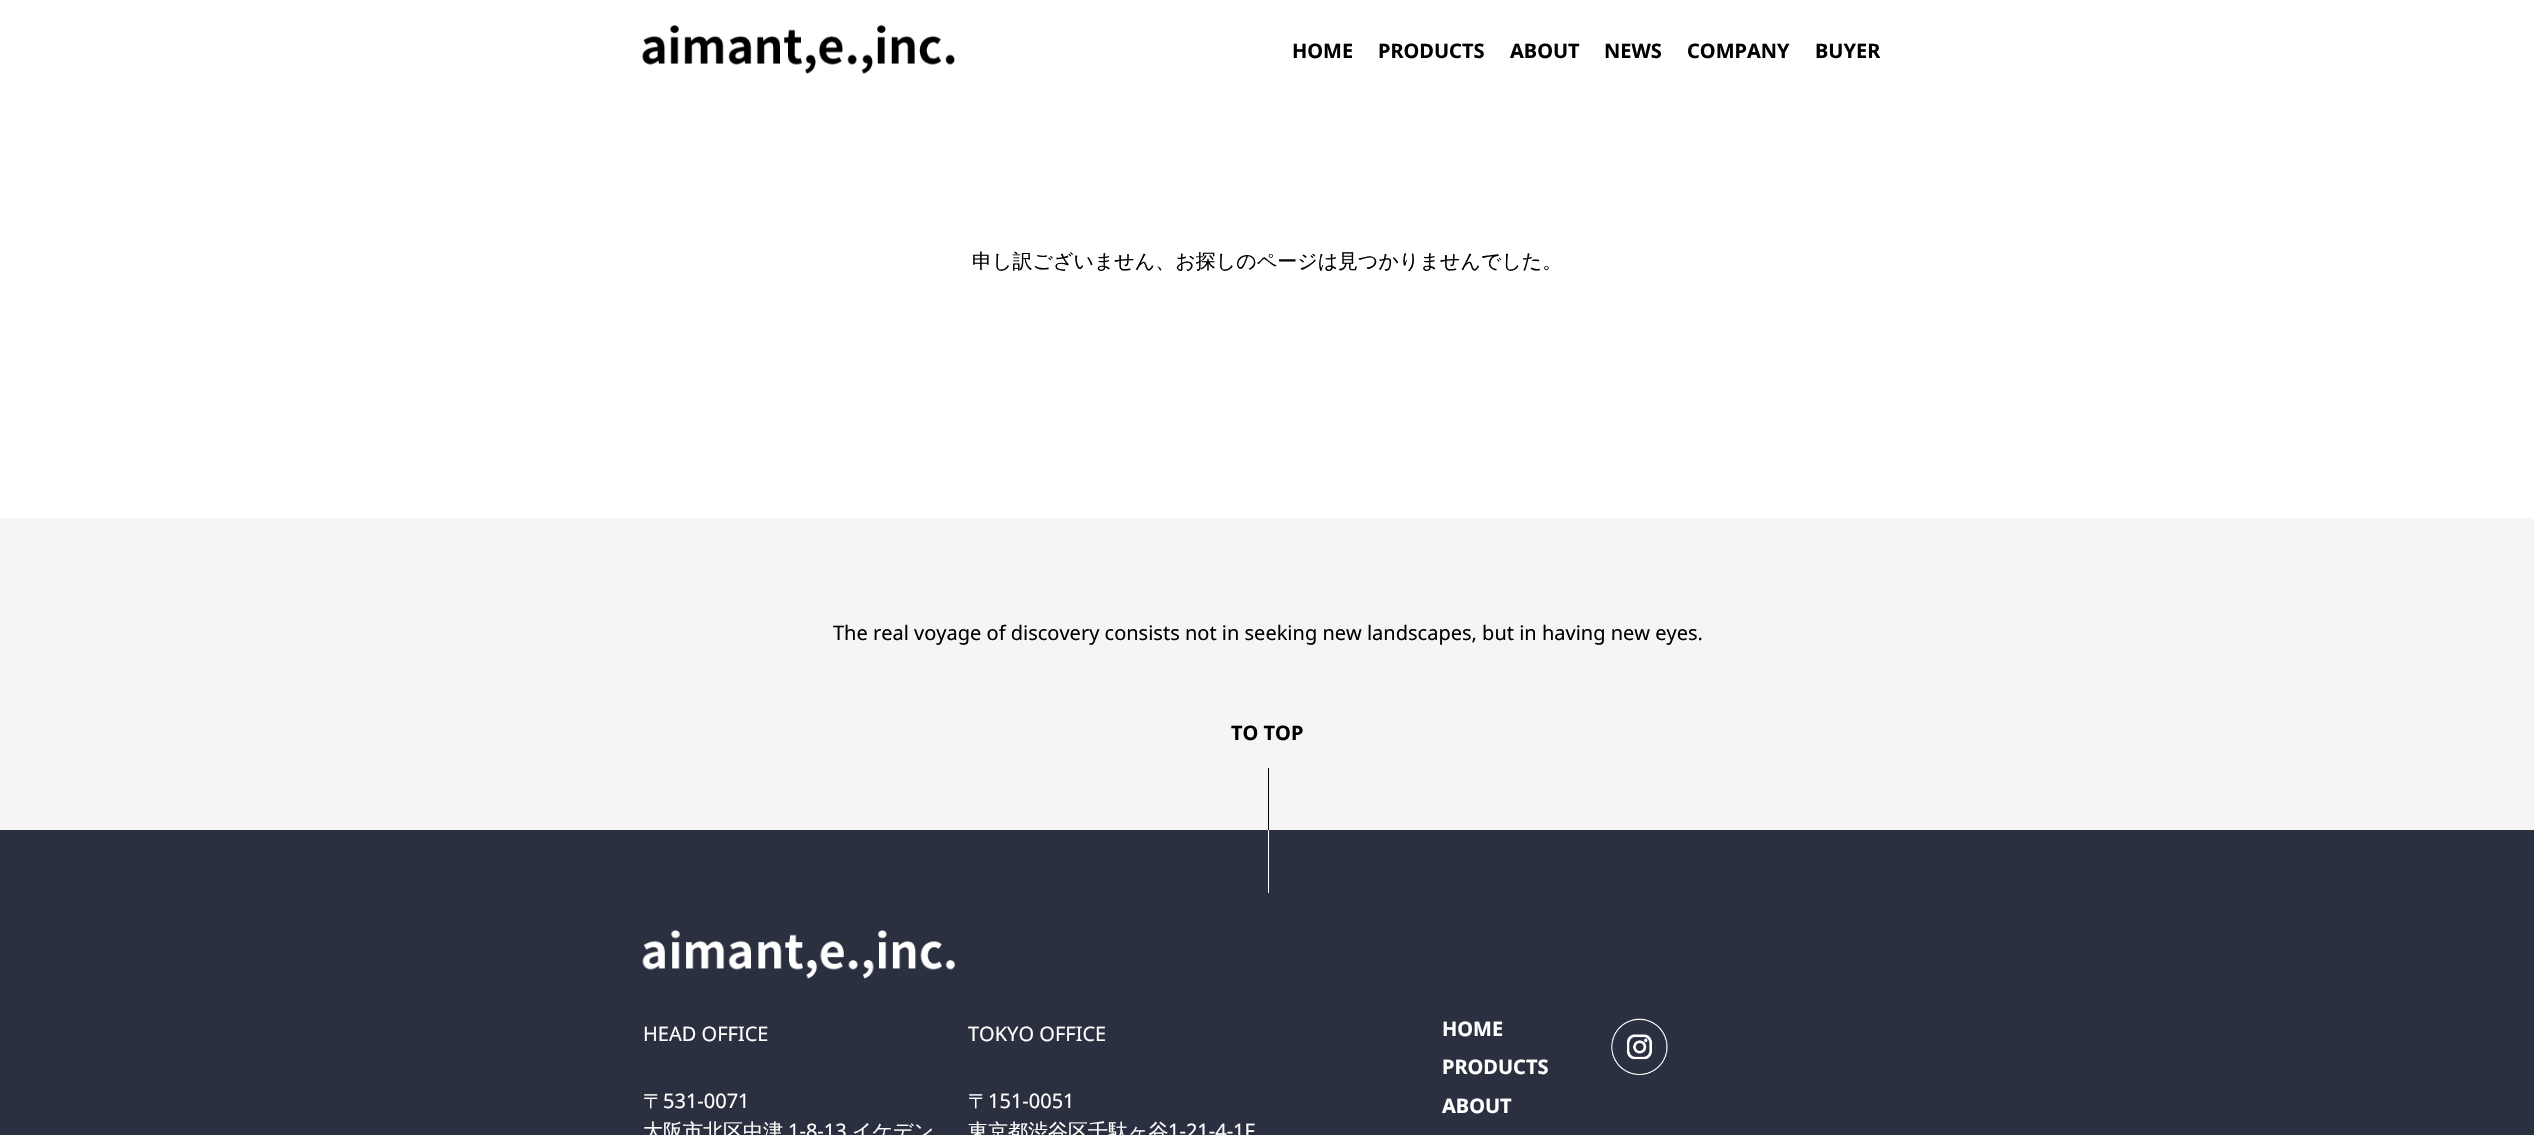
void draw(SkCanvas* canvas) {
    SkPaint paint;
    paint.setAntiAlias(true);
    canvas->clear(0xFFFFFFFF);
    canvas->drawImageRect(SkImages::DeferredFromEncodedData(SkData::MakeFromFileName("img1.png")), SkRect::MakeXYWH(642, 25, 313, 49), SkSamplingOptions());
    SkFont font1(fontMgr->matchFamilyStyle("Noto Sans", SkFontStyle::Bold()), 20);
    font1.setSubpixel(true);
    paint.setColor(0xFF000000);
    canvas->drawString("HOME", 1292, 58, font1, paint);
    canvas->drawString("PRODUCTS", 1378, 58, font1, paint);
    canvas->drawString("ABOUT", 1510, 58, font1, paint);
    canvas->drawString("NEWS", 1604, 58, font1, paint);
    canvas->drawString("COMPANY", 1687, 58, font1, paint);
    canvas->drawString("BUYER", 1815, 58, font1, paint);
    SkFont font2(fontMgr->matchFamilyStyle("WenQuanYi Zen Hei", SkFontStyle(500, SkFontStyle::kNormal_Width, SkFontStyle::kUpright_Slant)), 20);
    font2.setSubpixel(true);
    canvas->drawString("申し訳ございません、お探しのページは見つかりませんでした。", 972, 268, font2, paint);
    paint.setColor(0xFFF5F5F5);
    canvas->drawRect(SkRect::MakeXYWH(0, 518, 2534, 312), paint);
    SkFont font3(fontMgr->matchFamilyStyle("Noto Sans", SkFontStyle::Normal()), 20);
    font3.setSubpixel(true);
    paint.setColor(0xFF000000);
    canvas->drawString("The real voyage of discovery consists not in seeking new landscapes, but in having new eyes.", 833, 640, font3, paint);
    canvas->drawString("TO TOP", 1231, 740, font1, paint);
    canvas->drawRect(SkRect::MakeXYWH(1268, 768, 1, 62), paint);
    paint.setColor(0xFF2B3040);
    canvas->drawRect(SkRect::MakeXYWH(0, 830, 2534, 305), paint);
    paint.setColor(0xFFFFFFFF);
    canvas->drawRect(SkRect::MakeXYWH(1268, 830, 1, 63), paint);
    canvas->drawImageRect(SkImages::DeferredFromEncodedData(SkData::MakeFromFileName("img2.png")), SkRect::MakeXYWH(642, 930, 313, 49), SkSamplingOptions());
    canvas->drawString("HEAD OFFICE", 643, 1041, font3, paint);
    canvas->drawString("〒", 643, 1108, font2, paint);
    canvas->drawString("531-0071", 663, 1108, font3, paint);
    canvas->drawString("大阪市北区中津", 643, 1138, font2, paint);
    canvas->drawString("1-8-13", 788, 1138, font3, paint);
    canvas->drawString("イケデン", 852, 1138, font2, paint);
    canvas->drawString("TOKYO OFFICE", 968, 1041, font3, paint);
    canvas->drawString("〒", 968, 1108, font2, paint);
    canvas->drawString("151-0051", 988, 1108, font3, paint);
    canvas->drawString("東京都渋谷区千駄ヶ谷", 968, 1138, font2, paint);
    canvas->drawString("1-21-4-1F", 1168, 1138, font3, paint);
    canvas->drawString("HOME", 1442, 1036, font1, paint);
    canvas->drawString("PRODUCTS", 1442, 1074, font1, paint);
    canvas->drawString("ABOUT", 1442, 1113, font1, paint);
    canvas->drawImageRect(SkImages::DeferredFromEncodedData(SkData::MakeFromFileName("img3.png")), SkRect::MakeXYWH(1611, 1018, 57, 57), SkSamplingOptions());
}
